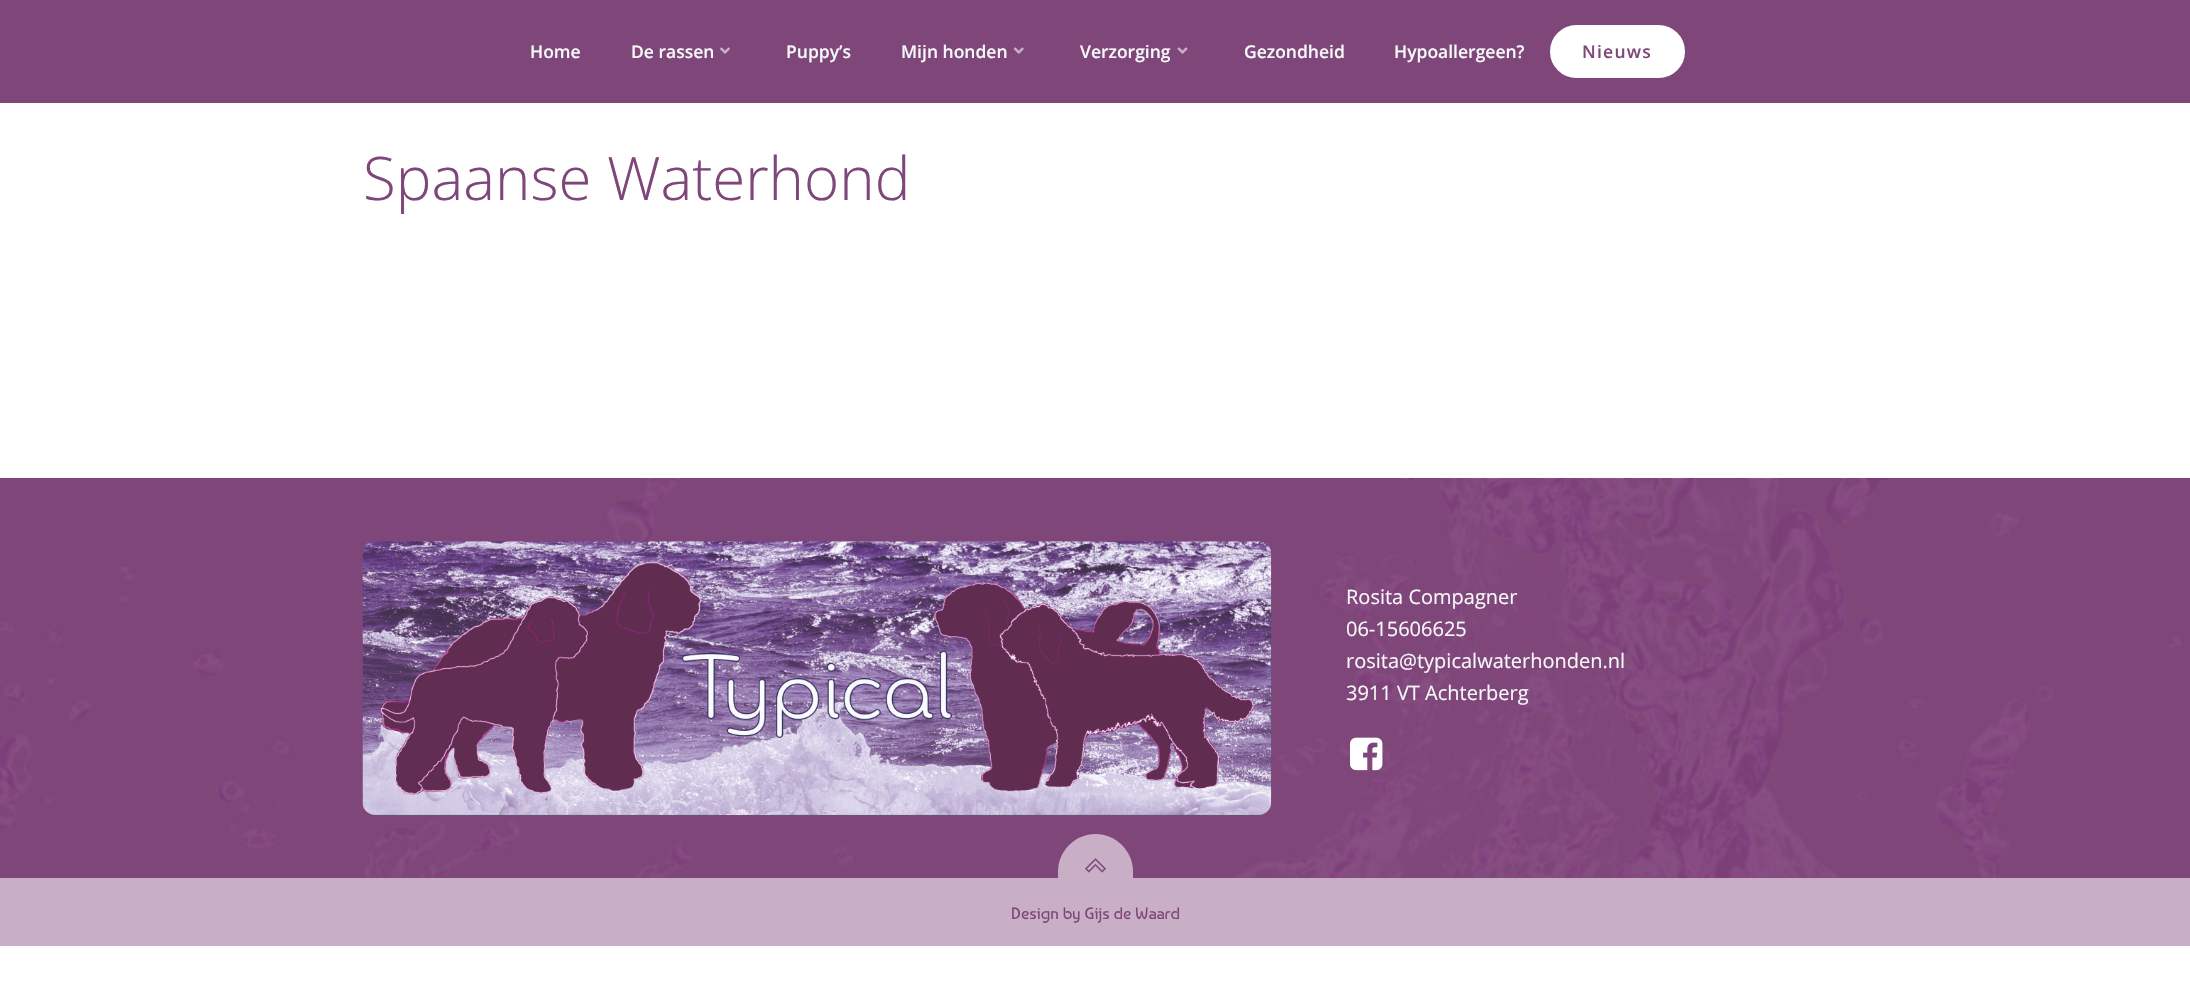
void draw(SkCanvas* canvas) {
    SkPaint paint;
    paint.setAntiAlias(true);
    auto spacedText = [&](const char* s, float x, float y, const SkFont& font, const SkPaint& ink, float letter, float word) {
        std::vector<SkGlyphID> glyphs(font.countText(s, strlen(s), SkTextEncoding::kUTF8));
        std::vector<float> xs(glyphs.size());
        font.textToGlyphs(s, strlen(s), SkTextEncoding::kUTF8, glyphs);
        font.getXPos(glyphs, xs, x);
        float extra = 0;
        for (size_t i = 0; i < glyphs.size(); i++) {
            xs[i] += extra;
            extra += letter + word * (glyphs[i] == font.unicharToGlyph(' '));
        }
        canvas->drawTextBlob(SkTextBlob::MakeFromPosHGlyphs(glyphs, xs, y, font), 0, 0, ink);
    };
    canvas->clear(0xFFFFFFFF);
    paint.setColor(0xFF7F4679);
    canvas->drawRect(SkRect::MakeXYWH(0, 0, 2190, 103), paint);
    SkFont font1(fontMgr->matchFamilyStyle("Open Sans", SkFontStyle(600, SkFontStyle::kNormal_Width, SkFontStyle::kUpright_Slant)), 17.5f);
    font1.setSubpixel(true);
    paint.setColor(0xFFF6F8FA);
    canvas->drawString("Home", 530, 58, font1, paint);
    canvas->drawString("De rassen", 631, 58, font1, paint);
    canvas->drawImageRect(SkImages::DeferredFromEncodedData(SkData::MakeFromFileName("img1.png")), SkRect::MakeXYWH(720, 47, 10, 7), SkSamplingOptions());
    canvas->drawString("Puppy’s", 786, 58, font1, paint);
    canvas->drawString("Mijn honden", 901, 58, font1, paint);
    canvas->drawImageRect(SkImages::DeferredFromEncodedData(SkData::MakeFromFileName("img2.png")), SkRect::MakeXYWH(1013, 47, 11, 7), SkSamplingOptions());
    canvas->drawString("Verzorging", 1080, 58, font1, paint);
    canvas->drawImageRect(SkImages::DeferredFromEncodedData(SkData::MakeFromFileName("img3.png")), SkRect::MakeXYWH(1177, 47, 11, 7), SkSamplingOptions());
    canvas->drawString("Gezondheid", 1244, 58, font1, paint);
    canvas->drawString("Hypoallergeen?", 1394, 58, font1, paint);
    paint.setColor(0xFFFFFFFF);
    canvas->drawRoundRect(SkRect::MakeXYWH(1551.5f, 26.5f, 132, 50), 25, 25, paint);
    paint.setStyle(SkPaint::kStroke_Style);
    paint.setStrokeWidth(3);
    canvas->drawRoundRect(SkRect::MakeXYWH(1551.5f, 26.5f, 132, 50), 25, 25, paint);
    paint.setStyle(SkPaint::kFill_Style);
    paint.setColor(0xFF7F4679);
    spacedText("Nieuws", 1582, 58, font1, paint, 1.25f, 0);
    SkFont font2(fontMgr->matchFamilyStyle("Open Sans", SkFontStyle(300, SkFontStyle::kNormal_Width, SkFontStyle::kUpright_Slant)), 60);
    font2.setSubpixel(true);
    canvas->drawString("Spaanse Waterhond", 363, 200, font2, paint);
    canvas->drawImageRect(SkImages::DeferredFromEncodedData(SkData::MakeFromFileName("img4.png")), SkRect::MakeXYWH(0, 478, 2190, 400), SkSamplingOptions());
    canvas->drawImageRect(SkImages::DeferredFromEncodedData(SkData::MakeFromFileName("img5.png")), SkRect::MakeXYWH(362, 541, 910, 274), SkSamplingOptions());
    SkFont font3(fontMgr->matchFamilyStyle("Open Sans", SkFontStyle::Normal()), 20);
    font3.setSubpixel(true);
    paint.setColor(0xFFF6F8FA);
    canvas->drawString("Rosita Compagner", 1346, 604, font3, paint);
    canvas->drawString("06-15606625", 1346, 636, font3, paint);
    canvas->drawString("rosita@typicalwaterhonden.nl", 1346, 668, font3, paint);
    canvas->drawString("3911 VT Achterberg", 1346, 700, font3, paint);
    canvas->drawImageRect(SkImages::DeferredFromEncodedData(SkData::MakeFromFileName("img6.png")), SkRect::MakeXYWH(1350, 737, 33, 34), SkSamplingOptions());
    paint.setColor(0xFFC8AFC5);
    canvas->drawPath(SkPathBuilder().moveTo(1095.5f, 834).cubicTo(1116, 834, 1133, 851, 1133, 871.5f).lineTo(1133, 878).lineTo(1058, 878).lineTo(1058, 871.5f).cubicTo(1058, 851, 1075, 834, 1095.5f, 834).close().detach(), paint);
    canvas->drawImageRect(SkImages::DeferredFromEncodedData(SkData::MakeFromFileName("img7.png")), SkRect::MakeXYWH(1085, 858, 21, 15), SkSamplingOptions());
    canvas->drawRect(SkRect::MakeXYWH(0, 878, 2190, 68), paint);
    SkFont font4(fontMgr->matchFamilyStyle("Baumans", SkFontStyle::Normal()), 16.25f);
    font4.setSubpixel(true);
    paint.setColor(0xFF7F4679);
    canvas->drawString("Design by Gijs de Waard", 1011, 919, font4, paint);
}
